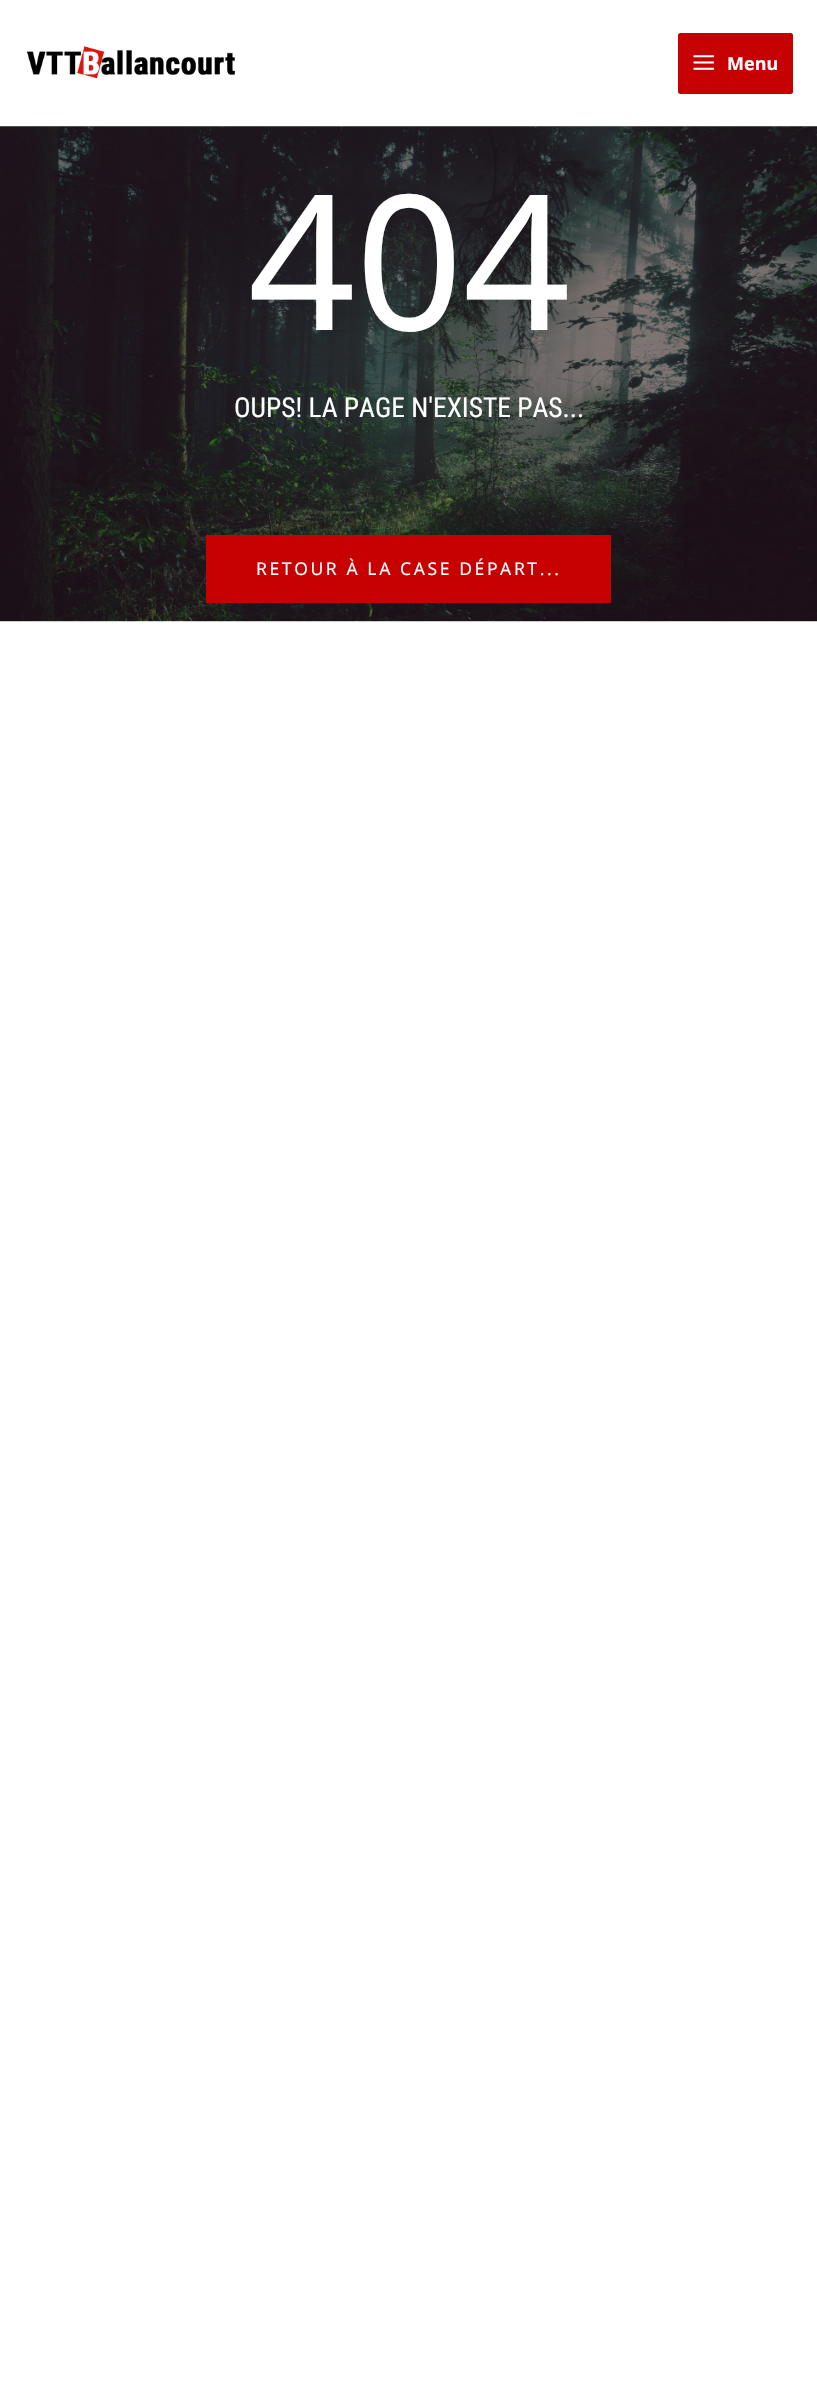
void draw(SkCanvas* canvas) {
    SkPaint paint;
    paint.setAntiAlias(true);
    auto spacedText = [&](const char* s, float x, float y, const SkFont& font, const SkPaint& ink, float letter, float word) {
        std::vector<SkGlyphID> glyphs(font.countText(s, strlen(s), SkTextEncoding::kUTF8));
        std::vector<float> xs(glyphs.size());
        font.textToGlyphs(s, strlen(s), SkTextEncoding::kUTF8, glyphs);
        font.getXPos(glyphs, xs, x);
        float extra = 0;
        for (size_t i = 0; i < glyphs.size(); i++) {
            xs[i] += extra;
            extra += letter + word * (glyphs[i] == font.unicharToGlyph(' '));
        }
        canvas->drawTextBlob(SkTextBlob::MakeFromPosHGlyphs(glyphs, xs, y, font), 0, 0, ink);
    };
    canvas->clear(0xFFFFFFFF);
    canvas->drawImageRect(SkImages::DeferredFromEncodedData(SkData::MakeFromFileName("img1.png")), SkRect::MakeXYWH(27, 46, 209, 33), SkSamplingOptions());
    paint.setColor(0xFFC70102);
    canvas->drawRoundRect(SkRect::MakeXYWH(678, 33, 115, 61), 2.5f, 2.5f, paint);
    canvas->drawImageRect(SkImages::DeferredFromEncodedData(SkData::MakeFromFileName("img2.png")), SkRect::MakeXYWH(693, 55, 22, 15), SkSamplingOptions());
    SkFont font1(fontMgr->matchFamilyStyle("Noto Sans", SkFontStyle::Bold()), 18);
    font1.setSubpixel(true);
    paint.setColor(0xFFFFFFFF);
    canvas->drawString("Menu", 727, 70, font1, paint);
    canvas->drawImageRect(SkImages::DeferredFromEncodedData(SkData::MakeFromFileName("img3.png")), SkRect::MakeXYWH(0, 126, 817, 496), SkSamplingOptions());
    SkFont font2(fontMgr->matchFamilyStyle("Noto Sans", SkFontStyle::Normal()), 188);
    font2.setSubpixel(true);
    canvas->drawString("404", 248, 330, font2, paint);
    SkFont font3(fontMgr->matchFamilyStyle("Roboto Condensed", SkFontStyle::Normal()), 27.5f);
    font3.setSubpixel(true);
    canvas->drawString("OUPS! LA PAGE N'EXISTE PAS...", 234, 417, font3, paint);
    paint.setColor(0xFFC70102);
    canvas->drawRect(SkRect::MakeXYWH(206, 535, 405, 68), paint);
    SkFont font4(fontMgr->matchFamilyStyle("Noto Sans", SkFontStyle::Normal()), 17.5f);
    font4.setSubpixel(true);
    paint.setColor(0xFFFFFFFF);
    spacedText("RETOUR À LA CASE DÉPART...", 256, 575, font4, paint, 2.6f, 0);
}
